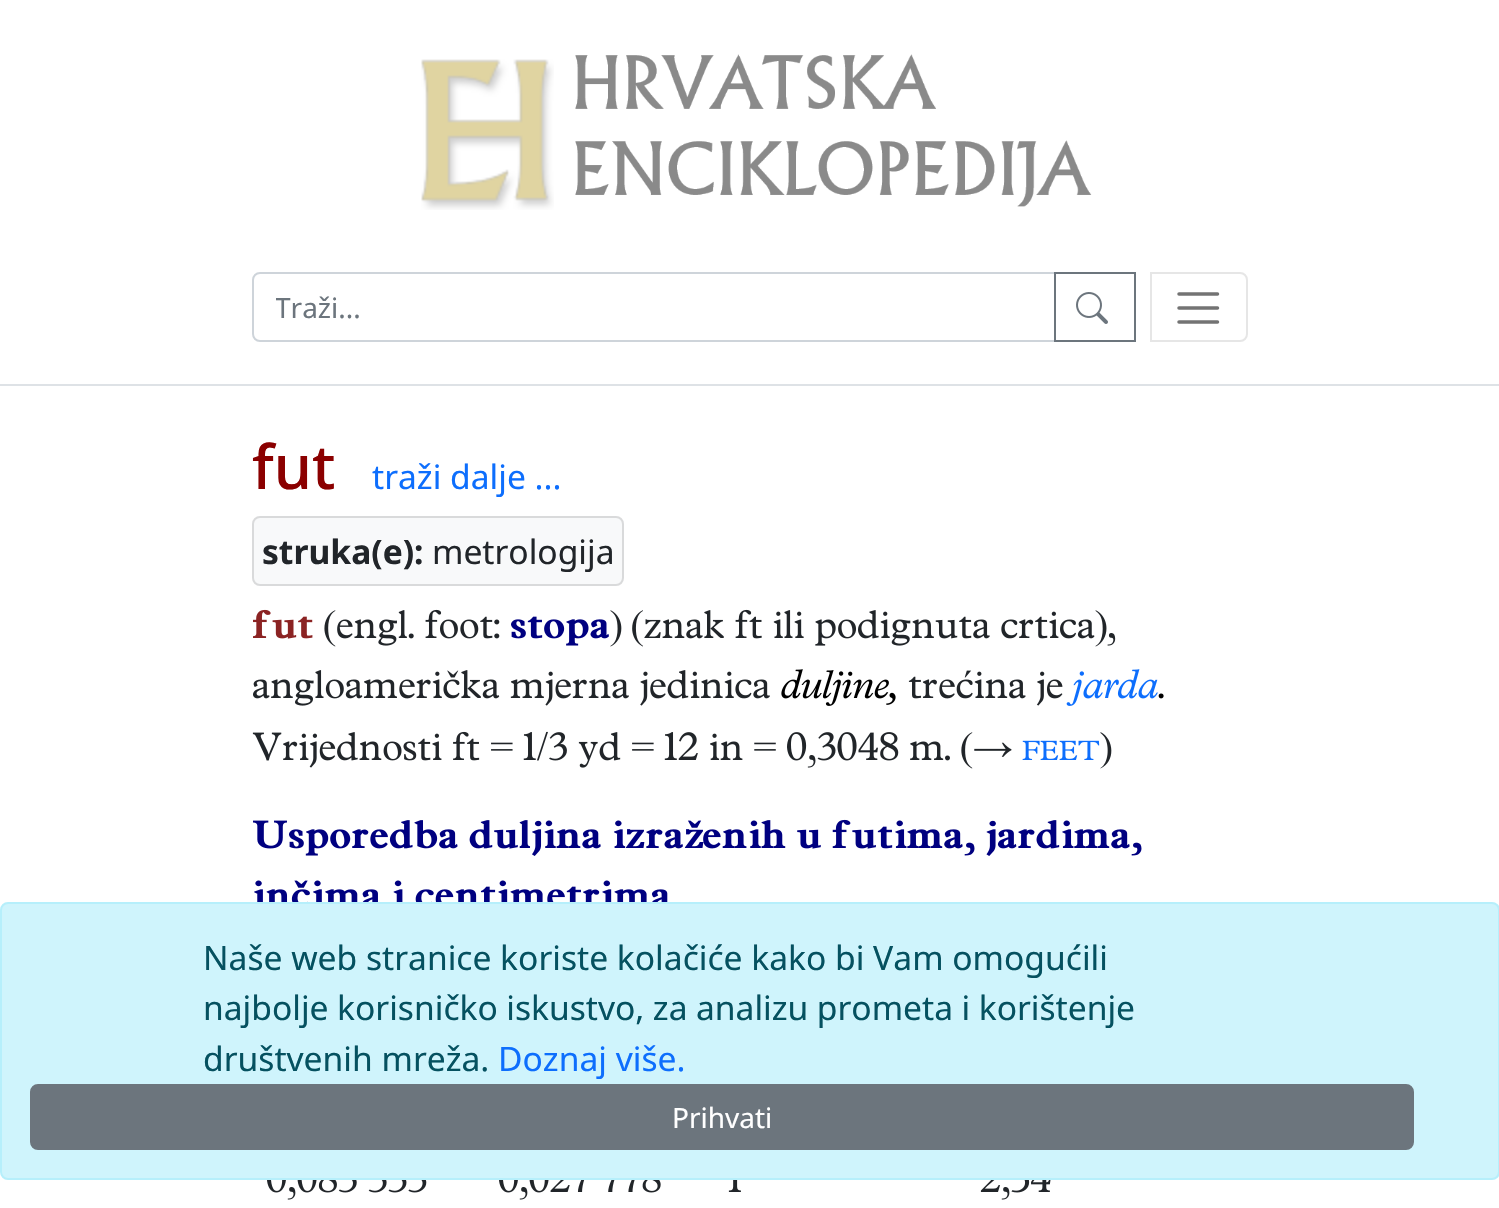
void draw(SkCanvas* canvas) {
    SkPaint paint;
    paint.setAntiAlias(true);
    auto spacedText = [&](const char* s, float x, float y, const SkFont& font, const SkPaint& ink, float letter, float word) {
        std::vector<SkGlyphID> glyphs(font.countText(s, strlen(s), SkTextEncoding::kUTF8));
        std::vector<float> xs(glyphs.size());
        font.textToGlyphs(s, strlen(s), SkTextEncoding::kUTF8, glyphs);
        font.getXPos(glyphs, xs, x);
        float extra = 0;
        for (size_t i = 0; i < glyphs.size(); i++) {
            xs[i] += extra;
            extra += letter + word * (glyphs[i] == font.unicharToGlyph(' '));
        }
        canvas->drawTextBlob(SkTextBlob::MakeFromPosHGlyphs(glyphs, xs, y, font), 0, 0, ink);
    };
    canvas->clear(0xFFFFFFFF);
    canvas->drawImageRect(SkImages::DeferredFromEncodedData(SkData::MakeFromFileName("img1.png")), SkRect::MakeXYWH(421, 59, 133, 151), SkSamplingOptions());
    canvas->drawImageRect(SkImages::DeferredFromEncodedData(SkData::MakeFromFileName("img2.png")), SkRect::MakeXYWH(575, 54, 517, 153), SkSamplingOptions());
    paint.setColor(0xFFDEE2E6);
    canvas->drawRect(SkRect::MakeXYWH(0, 384, 1499, 2), paint);
    paint.setStyle(SkPaint::kStroke_Style);
    paint.setStrokeWidth(2);
    paint.setColor(0xFFCED4DA);
    canvas->drawPath(SkPathBuilder().moveTo(260, 273).lineTo(1055, 273).lineTo(1055, 341).lineTo(260, 341).cubicTo(256, 341, 253, 338, 253, 334).lineTo(253, 280).cubicTo(253, 276, 256, 273, 260, 273).close().detach(), paint);
    canvas->save();
    canvas->clipRect(SkRect::MakeXYWH(276, 288, 728, 38));
    SkFont font1(fontMgr->matchFamilyStyle("Noto Sans", SkFontStyle::Normal()), 28);
    font1.setSubpixel(true);
    paint.setStyle(SkPaint::kFill_Style);
    paint.setColor(0xFF6C757D);
    canvas->drawString("Traži...", 275, 318, font1, paint);
    canvas->restore();
    paint.setStyle(SkPaint::kStroke_Style);
    canvas->drawRect(SkRect::MakeXYWH(1055, 273, 80, 68), paint);
    canvas->drawImageRect(SkImages::DeferredFromEncodedData(SkData::MakeFromFileName("img3.png")), SkRect::MakeXYWH(1076, 292, 32, 32), SkSamplingOptions());
    paint.setColor(0xFFE6E6E6);
    canvas->drawPath(SkPathBuilder().moveTo(1151, 273).lineTo(1240, 273).cubicTo(1244, 273, 1247, 276, 1247, 280).lineTo(1247, 334).cubicTo(1247, 338, 1244, 341, 1240, 341).lineTo(1151, 341).close().detach(), paint);
    paint.setStrokeWidth(3.5f);
    paint.setStrokeCap(SkPaint::kRound_Cap);
    paint.setColor(0xFF737373);
    canvas->drawPath(SkPathBuilder().moveTo(1179, 294).lineTo(1217.5f, 294).moveTo(1179, 308).lineTo(1217.5f, 308).moveTo(1179, 322).lineTo(1217.5f, 322).detach(), paint);
    SkFont font2(fontMgr->matchFamilyStyle("Noto Sans", SkFontStyle(500, SkFontStyle::kNormal_Width, SkFontStyle::kUpright_Slant)), 61);
    font2.setSubpixel(true);
    paint.setStyle(SkPaint::kFill_Style);
    paint.setColor(0xFF8B0000);
    canvas->drawString("fut", 252, 489, font2, paint);
    SkFont font3(fontMgr->matchFamilyStyle("Noto Sans", SkFontStyle::Normal()), 33.6f);
    font3.setSubpixel(true);
    paint.setColor(0xFF0D6EFD);
    canvas->drawString("traži dalje ...", 372, 489, font3, paint);
    paint.setColor(0xFFF8F9FA);
    canvas->drawRoundRect(SkRect::MakeXYWH(252, 516, 372, 70), 8, 8, paint);
    paint.setStyle(SkPaint::kStroke_Style);
    paint.setStrokeWidth(2);
    paint.setStrokeCap(SkPaint::kButt_Cap);
    paint.setColor(0x1F000000);
    canvas->drawRoundRect(SkRect::MakeXYWH(253, 517, 370, 68), 7, 7, paint);
    SkFont font4(fontMgr->matchFamilyStyle("Noto Sans", SkFontStyle::Bold()), 33.6f);
    font4.setSubpixel(true);
    paint.setStyle(SkPaint::kFill_Style);
    paint.setColor(0xFF212529);
    canvas->drawString("struka(e):", 262, 564, font4, paint);
    canvas->drawString("metrologija", 432, 564, font3, paint);
    canvas->drawImageRect(SkImages::DeferredFromEncodedData(SkData::MakeFromFileName("img4.png")), SkRect::MakeXYWH(253, 609, 60, 30), SkSamplingOptions());
    canvas->drawImageRect(SkImages::DeferredFromEncodedData(SkData::MakeFromFileName("img5.png")), SkRect::MakeXYWH(324, 609, 176, 38), SkSamplingOptions());
    canvas->drawImageRect(SkImages::DeferredFromEncodedData(SkData::MakeFromFileName("img6.png")), SkRect::MakeXYWH(511, 616, 98, 30), SkSamplingOptions());
    canvas->drawImageRect(SkImages::DeferredFromEncodedData(SkData::MakeFromFileName("img7.png")), SkRect::MakeXYWH(610, 609, 506, 38), SkSamplingOptions());
    canvas->drawImageRect(SkImages::DeferredFromEncodedData(SkData::MakeFromFileName("img8.png")), SkRect::MakeXYWH(253, 670, 517, 36), SkSamplingOptions());
    canvas->drawImageRect(SkImages::DeferredFromEncodedData(SkData::MakeFromFileName("img9.png")), SkRect::MakeXYWH(781, 669, 115, 37), SkSamplingOptions());
    canvas->drawImageRect(SkImages::DeferredFromEncodedData(SkData::MakeFromFileName("img10.png")), SkRect::MakeXYWH(908, 670, 155, 36), SkSamplingOptions());
    canvas->drawImageRect(SkImages::DeferredFromEncodedData(SkData::MakeFromFileName("img11.png")), SkRect::MakeXYWH(1066, 669, 92, 37), SkSamplingOptions());
    canvas->drawImageRect(SkImages::DeferredFromEncodedData(SkData::MakeFromFileName("img12.png")), SkRect::MakeXYWH(1158, 693, 6, 6), SkSamplingOptions());
    canvas->drawImageRect(SkImages::DeferredFromEncodedData(SkData::MakeFromFileName("img13.png")), SkRect::MakeXYWH(252, 731, 760, 38), SkSamplingOptions());
    canvas->drawImageRect(SkImages::DeferredFromEncodedData(SkData::MakeFromFileName("img14.png")), SkRect::MakeXYWH(1022, 740, 78, 20), SkSamplingOptions());
    canvas->drawPath(SkPathBuilder().moveTo(1100.5f, 768.5f).lineTo(1100.5f, 768).cubicTo(1109, 763, 1109, 746.5f, 1105.5f, 739).cubicTo(1104.5f, 736.5f, 1102.5f, 734.5f, 1100.5f, 733).lineTo(1100.5f, 732).cubicTo(1114.5f, 739, 1115.5f, 762, 1100.5f, 768.5f).close().detach(), paint);
    canvas->drawImageRect(SkImages::DeferredFromEncodedData(SkData::MakeFromFileName("img15.png")), SkRect::MakeXYWH(253, 819, 889, 37), SkSamplingOptions());
    canvas->drawImageRect(SkImages::DeferredFromEncodedData(SkData::MakeFromFileName("img16.png")), SkRect::MakeXYWH(254, 880, 414, 22), SkSamplingOptions());
    canvas->drawImageRect(SkImages::DeferredFromEncodedData(SkData::MakeFromFileName("img17.png")), SkRect::MakeXYWH(267, 1180, 160, 20), SkSamplingOptions());
    canvas->drawImageRect(SkImages::DeferredFromEncodedData(SkData::MakeFromFileName("img18.png")), SkRect::MakeXYWH(499, 1180, 162, 20), SkSamplingOptions());
    canvas->drawImageRect(SkImages::DeferredFromEncodedData(SkData::MakeFromFileName("img19.png")), SkRect::MakeXYWH(728, 1180, 13, 12), SkSamplingOptions());
    canvas->drawImageRect(SkImages::DeferredFromEncodedData(SkData::MakeFromFileName("img20.png")), SkRect::MakeXYWH(980, 1180, 71, 20), SkSamplingOptions());
    paint.setColor(0xFFCFF4FC);
    canvas->drawRoundRect(SkRect::MakeXYWH(1, 903, 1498, 276), 7, 7, paint);
    paint.setStyle(SkPaint::kStroke_Style);
    paint.setColor(0xFFB6EFFB);
    canvas->drawRoundRect(SkRect::MakeXYWH(1, 903, 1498, 276), 7, 7, paint);
    paint.setStyle(SkPaint::kFill_Style);
    paint.setColor(0xFF055160);
    canvas->drawString("Naše web stranice koriste kolačiće kako bi Vam omogućili", 203, 970, font3, paint);
    spacedText("najbolje korisničko iskustvo, za analizu prometa i korištenje", 203, 1020, font3, paint, 0, -0.25f);
    canvas->drawString("društvenih mreža.", 203, 1071, font3, paint);
    paint.setColor(0xFF0D6EFD);
    canvas->drawString("Doznaj više.", 498, 1071, font3, paint);
    paint.setColor(0xFF6C757D);
    canvas->drawRoundRect(SkRect::MakeXYWH(31, 1085, 1382, 64), 7, 7, paint);
    paint.setStyle(SkPaint::kStroke_Style);
    canvas->drawRoundRect(SkRect::MakeXYWH(31, 1085, 1382, 64), 7, 7, paint);
    paint.setStyle(SkPaint::kFill_Style);
    paint.setColor(0xFFFFFFFF);
    canvas->drawString("Prihvati", 672, 1128, font1, paint);
}
